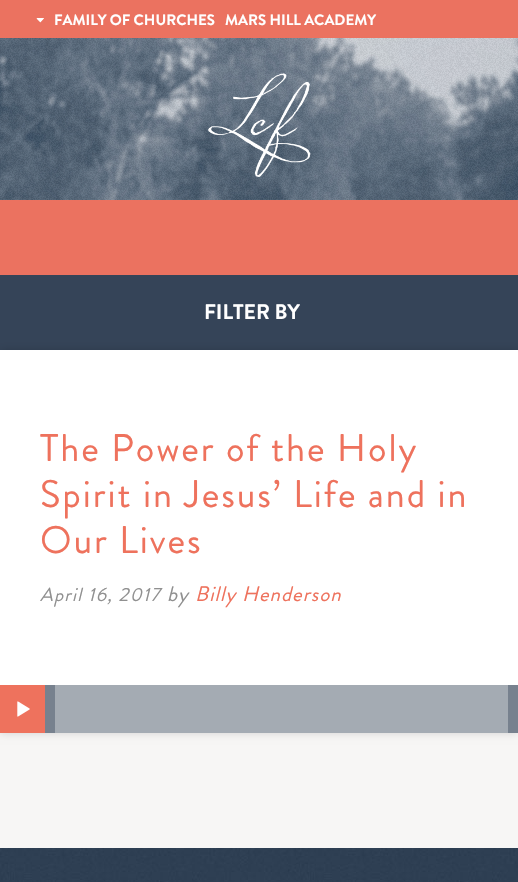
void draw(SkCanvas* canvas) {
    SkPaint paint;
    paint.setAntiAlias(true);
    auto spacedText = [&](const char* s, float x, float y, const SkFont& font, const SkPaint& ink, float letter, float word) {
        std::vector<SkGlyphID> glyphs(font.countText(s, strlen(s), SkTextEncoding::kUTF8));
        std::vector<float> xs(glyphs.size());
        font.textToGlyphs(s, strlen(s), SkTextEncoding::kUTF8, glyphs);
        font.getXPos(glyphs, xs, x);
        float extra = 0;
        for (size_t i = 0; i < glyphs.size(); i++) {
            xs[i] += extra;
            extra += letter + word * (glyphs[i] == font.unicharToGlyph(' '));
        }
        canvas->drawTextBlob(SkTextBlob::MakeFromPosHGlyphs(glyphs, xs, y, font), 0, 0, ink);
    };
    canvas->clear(0xFFFFFFFF);
    canvas->drawImageRect(SkImages::DeferredFromEncodedData(SkData::MakeFromFileName("img1.png")), SkRect::MakeXYWH(0, 848, 518, 34), SkSamplingOptions());
    paint.setColor(0xFFEB7260);
    canvas->drawRect(SkRect::MakeXYWH(0, 0, 518, 38), paint);
    canvas->drawImageRect(SkImages::DeferredFromEncodedData(SkData::MakeFromFileName("img2.png")), SkRect::MakeXYWH(36, 18, 8, 5), SkSamplingOptions());
    SkFont font1(fontMgr->matchFamilyStyle("Brandon Grotesque", SkFontStyle::Bold()), 15);
    font1.setSubpixel(true);
    paint.setColor(0xFFFFFFFF);
    canvas->drawString("FAMILY OF CHURCHES", 54, 25, font1, paint);
    canvas->drawString("MARS HILL ACADEMY", 225, 25, font1, paint);
    canvas->drawImageRect(SkImages::DeferredFromEncodedData(SkData::MakeFromFileName("img3.png")), SkRect::MakeXYWH(0, 38, 518, 162), SkSamplingOptions());
    canvas->drawImageRect(SkImages::DeferredFromEncodedData(SkData::MakeFromFileName("img4.png")), SkRect::MakeXYWH(0, 38, 518, 162), SkSamplingOptions());
    canvas->drawImageRect(SkImages::DeferredFromEncodedData(SkData::MakeFromFileName("img5.png")), SkRect::MakeXYWH(208, 73, 103, 104), SkSamplingOptions());
    paint.setColor(0xFFEB7260);
    canvas->drawRect(SkRect::MakeXYWH(0, 200, 518, 75), paint);
    paint.setColor(0xFFF7F6F5);
    canvas->drawRect(SkRect::MakeXYWH(0, 733, 518, 115), paint);
    paint.setColor(0xFF354458);
    canvas->drawRect(SkRect::MakeXYWH(0, 275, 518, 75), paint);
    SkFont font2(fontMgr->matchFamilyStyle("Brandon Grotesque", SkFontStyle::Bold()), 21);
    font2.setSubpixel(true);
    paint.setColor(0xFFFFFFFF);
    canvas->drawString("FILTER BY", 204, 319, font2, paint);
    paint.setColor(0x26000000);
    paint.setMaskFilter(SkMaskFilter::MakeBlur(kNormal_SkBlurStyle, 4));
    canvas->drawRect(SkRect::MakeXYWH(0, 350, 518, 383), paint);
    paint.setMaskFilter(nullptr);
    paint.setColor(0xFFFFFFFF);
    canvas->drawRect(SkRect::MakeXYWH(0, 350, 518, 335), paint);
    SkFont font3(fontMgr->matchFamilyStyle("Brandon Grotesque", SkFontStyle::Normal()), 38.4f);
    font3.setSubpixel(true);
    paint.setColor(0xFFEE725D);
    spacedText("The Power of the Holy", 40, 461, font3, paint, 1.9f, 0);
    spacedText("Spirit in Jesus’ Life and in", 40, 507, font3, paint, 1.9f, 0);
    spacedText("Our Lives", 40, 553, font3, paint, 1.9f, 0);
    SkFont font4(fontMgr->matchFamilyStyle("Brandon Grotesque", SkFontStyle::Italic()), 19);
    font4.setSubpixel(true);
    paint.setColor(0xFF909090);
    spacedText("April 16, 2017", 40, 601, font4, paint, 1.3f, 0);
    SkFont font5(fontMgr->matchFamilyStyle("Brandon Grotesque", SkFontStyle::Italic()), 21);
    font5.setSubpixel(true);
    spacedText("by", 167, 601, font5, paint, 1, 0);
    paint.setColor(0xFFEE725D);
    spacedText("Billy Henderson", 195, 601, font5, paint, 1, 0);
    paint.setColor(0xFF77818E);
    canvas->drawRect(SkRect::MakeXYWH(45, 685, 473, 48), paint);
    paint.setColor(0xFFEE725D);
    canvas->drawRect(SkRect::MakeXYWH(0, 685, 45, 48), paint);
    canvas->drawImageRect(SkImages::DeferredFromEncodedData(SkData::MakeFromFileName("img6.png")), SkRect::MakeXYWH(17, 701, 13, 16), SkSamplingOptions());
    paint.setColor(0xFFA4ABB3);
    canvas->drawRect(SkRect::MakeXYWH(55, 685, 453, 48), paint);
}
